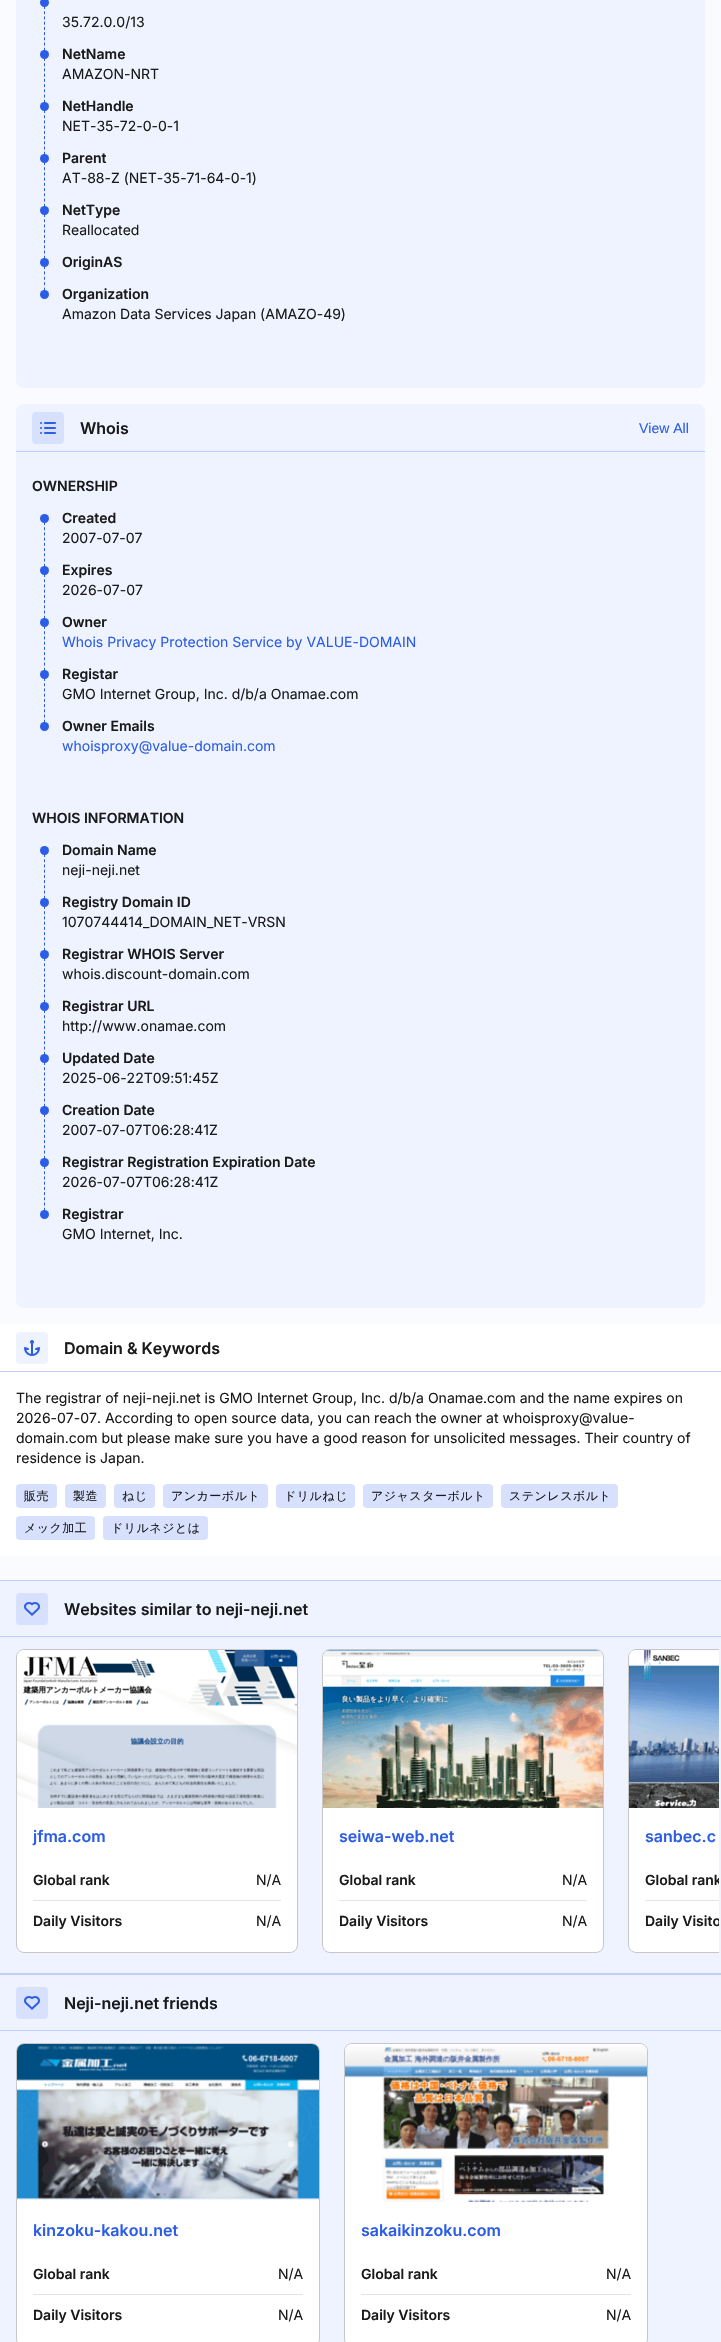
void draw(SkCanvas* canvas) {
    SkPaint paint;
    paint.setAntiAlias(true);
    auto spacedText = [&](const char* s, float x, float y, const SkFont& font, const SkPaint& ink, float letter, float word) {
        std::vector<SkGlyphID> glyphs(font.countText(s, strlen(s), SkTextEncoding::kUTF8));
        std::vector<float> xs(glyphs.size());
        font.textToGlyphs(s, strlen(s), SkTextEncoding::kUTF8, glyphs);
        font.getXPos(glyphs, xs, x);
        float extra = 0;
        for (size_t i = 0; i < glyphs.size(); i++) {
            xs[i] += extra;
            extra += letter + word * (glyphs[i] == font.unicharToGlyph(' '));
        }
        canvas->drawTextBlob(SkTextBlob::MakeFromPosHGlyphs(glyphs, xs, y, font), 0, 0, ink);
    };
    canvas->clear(0xFFF9FBFF);
    paint.setColor(0xFFEEF3FF);
    canvas->drawRoundRect(SkRect::MakeXYWH(16, -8, 689, 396), 8, 8, paint);
    paint.setColor(0xFF2C5DE5);
    canvas->drawCircle(44.5f, 2.5f, 4.5f, paint);
    paint.setStyle(SkPaint::kStroke_Style);
    paint.setStrokeWidth(1);
    paint.setPathEffect(SkDashPathEffect::Make({{3, 2.22f}}, 0));
    canvas->drawPath(SkPathBuilder().moveTo(44.5f, 6).lineTo(44.5f, 56).detach(), paint);
    paint.setPathEffect(nullptr);
    SkFont font1(fontMgr->matchFamilyStyle("Inter", SkFontStyle::Normal()), 14);
    font1.setSubpixel(true);
    paint.setStyle(SkPaint::kFill_Style);
    paint.setColor(0xFF1A1A1A);
    canvas->drawString("35.72.0.0/13", 62, 27, font1, paint);
    paint.setColor(0xFF2C5DE5);
    canvas->drawCircle(44.5f, 54.5f, 4.5f, paint);
    SkFont font2(fontMgr->matchFamilyStyle("Inter", SkFontStyle(600, SkFontStyle::kNormal_Width, SkFontStyle::kUpright_Slant)), 14);
    font2.setSubpixel(true);
    paint.setColor(0xFF1A1A1A);
    canvas->drawString("NetName", 62, 59, font2, paint);
    paint.setStyle(SkPaint::kStroke_Style);
    paint.setColor(0xFF2C5DE5);
    paint.setPathEffect(SkDashPathEffect::Make({{3, 2.22f}}, 0));
    canvas->drawPath(SkPathBuilder().moveTo(44.5f, 58).lineTo(44.5f, 108).detach(), paint);
    paint.setPathEffect(nullptr);
    paint.setStyle(SkPaint::kFill_Style);
    paint.setColor(0xFF1A1A1A);
    canvas->drawString("AMAZON-NRT", 62, 79, font1, paint);
    paint.setColor(0xFF2C5DE5);
    canvas->drawCircle(44.5f, 106.5f, 4.5f, paint);
    paint.setColor(0xFF1A1A1A);
    canvas->drawString("NetHandle", 62, 111, font2, paint);
    paint.setStyle(SkPaint::kStroke_Style);
    paint.setColor(0xFF2C5DE5);
    paint.setPathEffect(SkDashPathEffect::Make({{3, 2.22f}}, 0));
    canvas->drawPath(SkPathBuilder().moveTo(44.5f, 110).lineTo(44.5f, 160).detach(), paint);
    paint.setPathEffect(nullptr);
    paint.setStyle(SkPaint::kFill_Style);
    paint.setColor(0xFF1A1A1A);
    canvas->drawString("NET-35-72-0-0-1", 62, 131, font1, paint);
    paint.setColor(0xFF2C5DE5);
    canvas->drawCircle(44.5f, 158.5f, 4.5f, paint);
    paint.setColor(0xFF1A1A1A);
    canvas->drawString("Parent", 62, 163, font2, paint);
    paint.setStyle(SkPaint::kStroke_Style);
    paint.setColor(0xFF2C5DE5);
    paint.setPathEffect(SkDashPathEffect::Make({{3, 2.22f}}, 0));
    canvas->drawPath(SkPathBuilder().moveTo(44.5f, 162).lineTo(44.5f, 212).detach(), paint);
    paint.setPathEffect(nullptr);
    paint.setStyle(SkPaint::kFill_Style);
    paint.setColor(0xFF1A1A1A);
    canvas->drawString("AT-88-Z (NET-35-71-64-0-1)", 62, 183, font1, paint);
    paint.setColor(0xFF2C5DE5);
    canvas->drawCircle(44.5f, 210.5f, 4.5f, paint);
    paint.setColor(0xFF1A1A1A);
    canvas->drawString("NetType", 62, 215, font2, paint);
    paint.setStyle(SkPaint::kStroke_Style);
    paint.setColor(0xFF2C5DE5);
    paint.setPathEffect(SkDashPathEffect::Make({{3, 2.22f}}, 0));
    canvas->drawPath(SkPathBuilder().moveTo(44.5f, 214).lineTo(44.5f, 264).detach(), paint);
    paint.setPathEffect(nullptr);
    paint.setStyle(SkPaint::kFill_Style);
    paint.setColor(0xFF1A1A1A);
    canvas->drawString("Reallocated", 62, 235, font1, paint);
    paint.setColor(0xFF2C5DE5);
    canvas->drawCircle(44.5f, 262.5f, 4.5f, paint);
    paint.setColor(0xFF1A1A1A);
    canvas->drawString("OriginAS", 62, 267, font2, paint);
    paint.setStyle(SkPaint::kStroke_Style);
    paint.setColor(0xFF2C5DE5);
    paint.setPathEffect(SkDashPathEffect::Make({{3, 2.4f}}, 0));
    canvas->drawPath(SkPathBuilder().moveTo(44.5f, 266).lineTo(44.5f, 296).detach(), paint);
    paint.setPathEffect(nullptr);
    paint.setStyle(SkPaint::kFill_Style);
    canvas->drawCircle(44.5f, 294.5f, 4.5f, paint);
    paint.setColor(0xFF1A1A1A);
    canvas->drawString("Organization", 62, 299, font2, paint);
    canvas->drawString("Amazon Data Services Japan (AMAZO-49)", 62, 319, font1, paint);
    paint.setColor(0xFFEEF3FF);
    canvas->drawRoundRect(SkRect::MakeXYWH(16, 404, 689, 904), 8, 8, paint);
    paint.setColor(0xFFD7E1FE);
    canvas->drawRoundRect(SkRect::MakeXYWH(32, 412, 32, 32), 4, 4, paint);
    canvas->drawImageRect(SkImages::DeferredFromEncodedData(SkData::MakeFromFileName("img1.png")), SkRect::MakeXYWH(40, 422, 16, 12), SkSamplingOptions());
    SkFont font3(fontMgr->matchFamilyStyle("Inter", SkFontStyle(600, SkFontStyle::kNormal_Width, SkFontStyle::kUpright_Slant)), 16);
    font3.setSubpixel(true);
    paint.setColor(0xFF1A1A1A);
    canvas->drawString("Whois", 80, 434, font3, paint);
    SkFont font4(fontMgr->matchFamilyStyle("Liberation Sans", SkFontStyle::Normal()), 14);
    font4.setSubpixel(true);
    paint.setColor(0xFF2C5DE5);
    canvas->drawString("View All", 639, 433, font4, paint);
    paint.setColor(0xFFBFD0FD);
    canvas->drawRect(SkRect::MakeXYWH(16, 451, 689, 1), paint);
    paint.setColor(0xFF1A1A1A);
    canvas->drawString("OWNERSHIP", 32, 491, font2, paint);
    paint.setColor(0xFF2C5DE5);
    canvas->drawCircle(44.5f, 518.5f, 4.5f, paint);
    paint.setColor(0xFF1A1A1A);
    canvas->drawString("Created", 62, 523, font2, paint);
    paint.setStyle(SkPaint::kStroke_Style);
    paint.setColor(0xFF2C5DE5);
    paint.setPathEffect(SkDashPathEffect::Make({{3, 2.22f}}, 0));
    canvas->drawPath(SkPathBuilder().moveTo(44.5f, 522).lineTo(44.5f, 572).detach(), paint);
    paint.setPathEffect(nullptr);
    paint.setStyle(SkPaint::kFill_Style);
    paint.setColor(0xFF1A1A1A);
    canvas->drawString("2007-07-07", 62, 543, font1, paint);
    paint.setColor(0xFF2C5DE5);
    canvas->drawCircle(44.5f, 570.5f, 4.5f, paint);
    paint.setColor(0xFF1A1A1A);
    canvas->drawString("Expires", 62, 575, font2, paint);
    paint.setStyle(SkPaint::kStroke_Style);
    paint.setColor(0xFF2C5DE5);
    paint.setPathEffect(SkDashPathEffect::Make({{3, 2.22f}}, 0));
    canvas->drawPath(SkPathBuilder().moveTo(44.5f, 574).lineTo(44.5f, 624).detach(), paint);
    paint.setPathEffect(nullptr);
    paint.setStyle(SkPaint::kFill_Style);
    paint.setColor(0xFF1A1A1A);
    canvas->drawString("2026-07-07", 62, 595, font1, paint);
    paint.setColor(0xFF2C5DE5);
    canvas->drawCircle(44.5f, 622.5f, 4.5f, paint);
    paint.setColor(0xFF1A1A1A);
    canvas->drawString("Owner", 62, 627, font2, paint);
    paint.setStyle(SkPaint::kStroke_Style);
    paint.setColor(0xFF2C5DE5);
    paint.setPathEffect(SkDashPathEffect::Make({{3, 2.22f}}, 0));
    canvas->drawPath(SkPathBuilder().moveTo(44.5f, 626).lineTo(44.5f, 676).detach(), paint);
    paint.setPathEffect(nullptr);
    paint.setStyle(SkPaint::kFill_Style);
    canvas->drawString("Whois Privacy Protection Service by VALUE-DOMAIN", 62, 647, font1, paint);
    canvas->drawCircle(44.5f, 674.5f, 4.5f, paint);
    paint.setColor(0xFF1A1A1A);
    canvas->drawString("Registar", 62, 679, font2, paint);
    paint.setStyle(SkPaint::kStroke_Style);
    paint.setColor(0xFF2C5DE5);
    paint.setPathEffect(SkDashPathEffect::Make({{3, 2.22f}}, 0));
    canvas->drawPath(SkPathBuilder().moveTo(44.5f, 678).lineTo(44.5f, 728).detach(), paint);
    paint.setPathEffect(nullptr);
    paint.setStyle(SkPaint::kFill_Style);
    paint.setColor(0xFF1A1A1A);
    canvas->drawString("GMO Internet Group, Inc. d/b/a Onamae.com", 62, 699, font1, paint);
    paint.setColor(0xFF2C5DE5);
    canvas->drawCircle(44.5f, 726.5f, 4.5f, paint);
    paint.setColor(0xFF1A1A1A);
    canvas->drawString("Owner Emails", 62, 731, font2, paint);
    paint.setColor(0xFF2C5DE5);
    canvas->drawString("whoisproxy@value-domain.com", 62, 751, font1, paint);
    paint.setColor(0xFF1A1A1A);
    canvas->drawString("WHOIS INFORMATION", 32, 823, font2, paint);
    paint.setColor(0xFF2C5DE5);
    canvas->drawCircle(44.5f, 850.5f, 4.5f, paint);
    paint.setColor(0xFF1A1A1A);
    canvas->drawString("Domain Name", 62, 855, font2, paint);
    paint.setStyle(SkPaint::kStroke_Style);
    paint.setColor(0xFF2C5DE5);
    paint.setPathEffect(SkDashPathEffect::Make({{3, 2.22f}}, 0));
    canvas->drawPath(SkPathBuilder().moveTo(44.5f, 854).lineTo(44.5f, 904).detach(), paint);
    paint.setPathEffect(nullptr);
    paint.setStyle(SkPaint::kFill_Style);
    paint.setColor(0xFF1A1A1A);
    canvas->drawString("neji-neji.net", 62, 875, font1, paint);
    paint.setColor(0xFF2C5DE5);
    canvas->drawCircle(44.5f, 902.5f, 4.5f, paint);
    paint.setColor(0xFF1A1A1A);
    canvas->drawString("Registry Domain ID", 62, 907, font2, paint);
    paint.setStyle(SkPaint::kStroke_Style);
    paint.setColor(0xFF2C5DE5);
    paint.setPathEffect(SkDashPathEffect::Make({{3, 2.22f}}, 0));
    canvas->drawPath(SkPathBuilder().moveTo(44.5f, 906).lineTo(44.5f, 956).detach(), paint);
    paint.setPathEffect(nullptr);
    paint.setStyle(SkPaint::kFill_Style);
    paint.setColor(0xFF1A1A1A);
    canvas->drawString("1070744414_DOMAIN_NET-VRSN", 62, 927, font1, paint);
    paint.setColor(0xFF2C5DE5);
    canvas->drawCircle(44.5f, 954.5f, 4.5f, paint);
    paint.setColor(0xFF1A1A1A);
    canvas->drawString("Registrar WHOIS Server", 62, 959, font2, paint);
    paint.setStyle(SkPaint::kStroke_Style);
    paint.setColor(0xFF2C5DE5);
    paint.setPathEffect(SkDashPathEffect::Make({{3, 2.22f}}, 0));
    canvas->drawPath(SkPathBuilder().moveTo(44.5f, 958).lineTo(44.5f, 1008).detach(), paint);
    paint.setPathEffect(nullptr);
    paint.setStyle(SkPaint::kFill_Style);
    paint.setColor(0xFF1A1A1A);
    canvas->drawString("whois.discount-domain.com", 62, 979, font1, paint);
    paint.setColor(0xFF2C5DE5);
    canvas->drawCircle(44.5f, 1006.5f, 4.5f, paint);
    paint.setColor(0xFF1A1A1A);
    canvas->drawString("Registrar URL", 62, 1011, font2, paint);
    paint.setStyle(SkPaint::kStroke_Style);
    paint.setColor(0xFF2C5DE5);
    paint.setPathEffect(SkDashPathEffect::Make({{3, 2.22f}}, 0));
    canvas->drawPath(SkPathBuilder().moveTo(44.5f, 1010).lineTo(44.5f, 1060).detach(), paint);
    paint.setPathEffect(nullptr);
    paint.setStyle(SkPaint::kFill_Style);
    paint.setColor(0xFF1A1A1A);
    canvas->drawString("http://www.onamae.com", 62, 1031, font1, paint);
    paint.setColor(0xFF2C5DE5);
    canvas->drawCircle(44.5f, 1058.5f, 4.5f, paint);
    paint.setColor(0xFF1A1A1A);
    canvas->drawString("Updated Date", 62, 1063, font2, paint);
    paint.setStyle(SkPaint::kStroke_Style);
    paint.setColor(0xFF2C5DE5);
    paint.setPathEffect(SkDashPathEffect::Make({{3, 2.22f}}, 0));
    canvas->drawPath(SkPathBuilder().moveTo(44.5f, 1062).lineTo(44.5f, 1112).detach(), paint);
    paint.setPathEffect(nullptr);
    paint.setStyle(SkPaint::kFill_Style);
    paint.setColor(0xFF1A1A1A);
    canvas->drawString("2025-06-22T09:51:45Z", 62, 1083, font1, paint);
    paint.setColor(0xFF2C5DE5);
    canvas->drawCircle(44.5f, 1110.5f, 4.5f, paint);
    paint.setColor(0xFF1A1A1A);
    canvas->drawString("Creation Date", 62, 1115, font2, paint);
    paint.setStyle(SkPaint::kStroke_Style);
    paint.setColor(0xFF2C5DE5);
    paint.setPathEffect(SkDashPathEffect::Make({{3, 2.22f}}, 0));
    canvas->drawPath(SkPathBuilder().moveTo(44.5f, 1114).lineTo(44.5f, 1164).detach(), paint);
    paint.setPathEffect(nullptr);
    paint.setStyle(SkPaint::kFill_Style);
    paint.setColor(0xFF1A1A1A);
    canvas->drawString("2007-07-07T06:28:41Z", 62, 1135, font1, paint);
    paint.setColor(0xFF2C5DE5);
    canvas->drawCircle(44.5f, 1162.5f, 4.5f, paint);
    paint.setColor(0xFF1A1A1A);
    canvas->drawString("Registrar Registration Expiration Date", 62, 1167, font2, paint);
    paint.setStyle(SkPaint::kStroke_Style);
    paint.setColor(0xFF2C5DE5);
    paint.setPathEffect(SkDashPathEffect::Make({{3, 2.22f}}, 0));
    canvas->drawPath(SkPathBuilder().moveTo(44.5f, 1166).lineTo(44.5f, 1216).detach(), paint);
    paint.setPathEffect(nullptr);
    paint.setStyle(SkPaint::kFill_Style);
    paint.setColor(0xFF1A1A1A);
    canvas->drawString("2026-07-07T06:28:41Z", 62, 1187, font1, paint);
    paint.setColor(0xFF2C5DE5);
    canvas->drawCircle(44.5f, 1214.5f, 4.5f, paint);
    paint.setColor(0xFF1A1A1A);
    canvas->drawString("Registrar", 62, 1219, font2, paint);
    canvas->drawString("GMO Internet, Inc.", 62, 1239, font1, paint);
    paint.setColor(0xFFFFFFFF);
    canvas->drawRect(SkRect::MakeXYWH(0, 1324, 721, 232), paint);
    paint.setColor(0xFFEEF3FF);
    canvas->drawRoundRect(SkRect::MakeXYWH(16, 1332, 32, 32), 4, 4, paint);
    canvas->drawImageRect(SkImages::DeferredFromEncodedData(SkData::MakeFromFileName("img2.png")), SkRect::MakeXYWH(24, 1340, 16, 16), SkSamplingOptions());
    paint.setColor(0xFF1A1A1A);
    canvas->drawString("Domain & Keywords", 64, 1354, font3, paint);
    paint.setColor(0xFFBFD0FD);
    canvas->drawRect(SkRect::MakeXYWH(0, 1371, 721, 1), paint);
    paint.setColor(0xFF1A1A1A);
    canvas->drawString("The registrar of neji-neji.net is GMO Internet Group, Inc. d/b/a Onamae.com and the name expires on", 16, 1403, font1, paint);
    canvas->drawString("2026-07-07. According to open source data, you can reach the owner at whoisproxy@value-", 16, 1423, font1, paint);
    canvas->drawString("domain.com but please make sure you have a good reason for unsolicited messages. Their country of", 16, 1443, font1, paint);
    canvas->drawString("residence is Japan.", 16, 1463, font1, paint);
    paint.setColor(0xFFD7E1FE);
    canvas->drawRoundRect(SkRect::MakeXYWH(16, 1484, 41, 24), 4, 4, paint);
    SkFont font5(fontMgr->matchFamilyStyle("WenQuanYi Zen Hei", SkFontStyle(500, SkFontStyle::kNormal_Width, SkFontStyle::kUpright_Slant)), 12);
    font5.setSubpixel(true);
    paint.setColor(0xFF1A1A1A);
    spacedText("販売", 24, 1500, font5, paint, 0.5f, 0);
    paint.setColor(0xFFD7E1FE);
    canvas->drawRoundRect(SkRect::MakeXYWH(65, 1484, 41, 24), 4, 4, paint);
    paint.setColor(0xFF1A1A1A);
    spacedText("製造", 73, 1500, font5, paint, 0.5f, 0);
    paint.setColor(0xFFD7E1FE);
    canvas->drawRoundRect(SkRect::MakeXYWH(114, 1484, 41, 24), 4, 4, paint);
    paint.setColor(0xFF1A1A1A);
    spacedText("ねじ", 122, 1500, font5, paint, 0.5f, 0);
    paint.setColor(0xFFD7E1FE);
    canvas->drawRoundRect(SkRect::MakeXYWH(163, 1484, 105, 24), 4, 4, paint);
    paint.setColor(0xFF1A1A1A);
    spacedText("アンカーボルト", 171, 1500, font5, paint, 0.5f, 0);
    paint.setColor(0xFFD7E1FE);
    canvas->drawRoundRect(SkRect::MakeXYWH(276, 1484, 79, 24), 4, 4, paint);
    paint.setColor(0xFF1A1A1A);
    spacedText("ドリルねじ", 284, 1500, font5, paint, 0.5f, 0);
    paint.setColor(0xFFD7E1FE);
    canvas->drawRoundRect(SkRect::MakeXYWH(363, 1484, 130, 24), 4, 4, paint);
    paint.setColor(0xFF1A1A1A);
    spacedText("アジャスターボルト", 371, 1500, font5, paint, 0.5f, 0);
    paint.setColor(0xFFD7E1FE);
    canvas->drawRoundRect(SkRect::MakeXYWH(501, 1484, 117, 24), 4, 4, paint);
    paint.setColor(0xFF1A1A1A);
    spacedText("ステンレスボルト", 509, 1500, font5, paint, 0.5f, 0);
    paint.setColor(0xFFD7E1FE);
    canvas->drawRoundRect(SkRect::MakeXYWH(16, 1516, 79, 24), 4, 4, paint);
    paint.setColor(0xFF1A1A1A);
    spacedText("メック加工", 24, 1532, font5, paint, 0.5f, 0);
    paint.setColor(0xFFD7E1FE);
    canvas->drawRoundRect(SkRect::MakeXYWH(103, 1516, 105, 24), 4, 4, paint);
    paint.setColor(0xFF1A1A1A);
    spacedText("ドリルネジとは", 111, 1532, font5, paint, 0.5f, 0);
    paint.setColor(0xFFEEF3FF);
    canvas->drawRect(SkRect::MakeXYWH(0, 1581, 721, 392), paint);
    paint.setColor(0xFFBFD0FD);
    canvas->drawRect(SkRect::MakeXYWH(0, 1580, 721, 1), paint);
    canvas->drawRect(SkRect::MakeXYWH(0, 1973, 721, 2), paint);
    paint.setColor(0xFFD7E1FE);
    canvas->drawRoundRect(SkRect::MakeXYWH(16, 1593, 32, 32), 4, 4, paint);
    canvas->drawImageRect(SkImages::DeferredFromEncodedData(SkData::MakeFromFileName("img3.png")), SkRect::MakeXYWH(24, 1602, 16, 14), SkSamplingOptions());
    paint.setColor(0xFF1A1A1A);
    canvas->drawString("Websites similar to neji-neji.net", 64, 1615, font3, paint);
    paint.setColor(0xFFBFD0FD);
    canvas->drawRect(SkRect::MakeXYWH(0, 1636, 721, 1), paint);
    paint.setColor(0xFFFFFFFF);
    canvas->drawRoundRect(SkRect::MakeXYWH(16.5f, 1649.5f, 281, 303), 7.5f, 7.5f, paint);
    paint.setStyle(SkPaint::kStroke_Style);
    paint.setColor(0xFFC7C7C7);
    canvas->drawRoundRect(SkRect::MakeXYWH(16.5f, 1649.5f, 281, 303), 7.5f, 7.5f, paint);
    canvas->drawImageRect(SkImages::DeferredFromEncodedData(SkData::MakeFromFileName("img4.png")), SkRect::MakeXYWH(17, 1650, 280, 158), SkSamplingOptions());
    paint.setStyle(SkPaint::kFill_Style);
    paint.setColor(0xFF2C5DE5);
    canvas->drawString("jfma.com", 33, 1842, font3, paint);
    paint.setColor(0xFFE4E4E4);
    canvas->drawRect(SkRect::MakeXYWH(33, 1900, 248, 1), paint);
    paint.setColor(0xFF1A1A1A);
    canvas->drawString("Global rank", 33, 1885, font2, paint);
    canvas->drawString("N/A", 256, 1885, font1, paint);
    canvas->drawString("Daily Visitors", 33, 1926, font2, paint);
    canvas->drawString("N/A", 256, 1926, font1, paint);
    paint.setColor(0xFFFFFFFF);
    canvas->drawRoundRect(SkRect::MakeXYWH(322.5f, 1649.5f, 281, 303), 7.5f, 7.5f, paint);
    paint.setStyle(SkPaint::kStroke_Style);
    paint.setColor(0xFFC7C7C7);
    canvas->drawRoundRect(SkRect::MakeXYWH(322.5f, 1649.5f, 281, 303), 7.5f, 7.5f, paint);
    canvas->drawImageRect(SkImages::DeferredFromEncodedData(SkData::MakeFromFileName("img5.png")), SkRect::MakeXYWH(323, 1650, 280, 158), SkSamplingOptions());
    paint.setStyle(SkPaint::kFill_Style);
    paint.setColor(0xFF2C5DE5);
    canvas->drawString("seiwa-web.net", 339, 1842, font3, paint);
    paint.setColor(0xFFE4E4E4);
    canvas->drawRect(SkRect::MakeXYWH(339, 1900, 248, 1), paint);
    paint.setColor(0xFF1A1A1A);
    canvas->drawString("Global rank", 339, 1885, font2, paint);
    canvas->drawString("N/A", 562, 1885, font1, paint);
    canvas->drawString("Daily Visitors", 339, 1926, font2, paint);
    canvas->drawString("N/A", 562, 1926, font1, paint);
    paint.setColor(0xFFFFFFFF);
    canvas->drawPath(SkPathBuilder().moveTo(636, 1649).lineTo(719, 1649).lineTo(719, 1953).lineTo(636, 1953).cubicTo(631.5f, 1953, 628, 1949.5f, 628, 1945).lineTo(628, 1657).cubicTo(628, 1652.5f, 631.5f, 1649, 636, 1649).close().detach(), paint);
    canvas->save();
    canvas->clipRect(SkRect::MakeXYWH(0, 1637, 719, 336));
    paint.setStyle(SkPaint::kStroke_Style);
    paint.setColor(0xFFC7C7C7);
    canvas->drawRoundRect(SkRect::MakeXYWH(628.5f, 1649.5f, 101, 303), 7.5f, 7.5f, paint);
    canvas->restore();
    canvas->drawImageRect(SkImages::DeferredFromEncodedData(SkData::MakeFromFileName("img6.png")), SkRect::MakeXYWH(629, 1650, 90, 158), SkSamplingOptions());
    paint.setStyle(SkPaint::kFill_Style);
    paint.setColor(0xFF2C5DE5);
    canvas->drawString("sanbec.c", 645, 1842, font3, paint);
    paint.setColor(0xFFE4E4E4);
    canvas->drawRect(SkRect::MakeXYWH(645, 1900, 74, 1), paint);
    canvas->save();
    canvas->clipRect(SkRect::MakeXYWH(629, 1808, 90, 144));
    paint.setColor(0xFF1A1A1A);
    canvas->drawString("Global rank", 645, 1885, font2, paint);
    canvas->drawString("Daily Visito", 645, 1926, font2, paint);
    canvas->restore();
    paint.setColor(0xFFEEF3FF);
    canvas->drawRect(SkRect::MakeXYWH(0, 1975, 721, 367), paint);
    paint.setColor(0xFFD7E1FE);
    canvas->drawRoundRect(SkRect::MakeXYWH(16, 1987, 32, 32), 4, 4, paint);
    canvas->drawImageRect(SkImages::DeferredFromEncodedData(SkData::MakeFromFileName("img3.png")), SkRect::MakeXYWH(24, 1996, 16, 14), SkSamplingOptions());
    paint.setColor(0xFF1A1A1A);
    canvas->drawString("Neji-neji.net friends", 64, 2009, font3, paint);
    paint.setColor(0xFFBFD0FD);
    canvas->drawRect(SkRect::MakeXYWH(0, 2030, 721, 1), paint);
    paint.setColor(0xFFFFFFFF);
    canvas->drawRoundRect(SkRect::MakeXYWH(16.5f, 2043.5f, 303, 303), 7.5f, 7.5f, paint);
    paint.setStyle(SkPaint::kStroke_Style);
    paint.setColor(0xFFC7C7C7);
    canvas->drawRoundRect(SkRect::MakeXYWH(16.5f, 2043.5f, 303, 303), 7.5f, 7.5f, paint);
    canvas->drawImageRect(SkImages::DeferredFromEncodedData(SkData::MakeFromFileName("img7.png")), SkRect::MakeXYWH(17, 2044, 302, 156), SkSamplingOptions());
    paint.setStyle(SkPaint::kFill_Style);
    paint.setColor(0xFF2C5DE5);
    canvas->drawString("kinzoku-kakou.net", 33, 2236, font3, paint);
    paint.setColor(0xFFE4E4E4);
    canvas->drawRect(SkRect::MakeXYWH(33, 2294, 270, 1), paint);
    paint.setColor(0xFF1A1A1A);
    canvas->drawString("Global rank", 33, 2279, font2, paint);
    canvas->drawString("N/A", 278, 2279, font1, paint);
    canvas->drawString("Daily Visitors", 33, 2320, font2, paint);
    canvas->drawString("N/A", 278, 2320, font1, paint);
    paint.setColor(0xFFFFFFFF);
    canvas->drawRoundRect(SkRect::MakeXYWH(344.5f, 2043.5f, 303, 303), 7.5f, 7.5f, paint);
    paint.setStyle(SkPaint::kStroke_Style);
    paint.setColor(0xFFC7C7C7);
    canvas->drawRoundRect(SkRect::MakeXYWH(344.5f, 2043.5f, 303, 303), 7.5f, 7.5f, paint);
    canvas->drawImageRect(SkImages::DeferredFromEncodedData(SkData::MakeFromFileName("img8.png")), SkRect::MakeXYWH(345, 2044, 302, 158), SkSamplingOptions());
    paint.setStyle(SkPaint::kFill_Style);
    paint.setColor(0xFF2C5DE5);
    canvas->drawString("sakaikinzoku.com", 361, 2236, font3, paint);
    paint.setColor(0xFFE4E4E4);
    canvas->drawRect(SkRect::MakeXYWH(361, 2294, 270, 1), paint);
    paint.setColor(0xFF1A1A1A);
    canvas->drawString("Global rank", 361, 2279, font2, paint);
    canvas->drawString("N/A", 606, 2279, font1, paint);
    canvas->drawString("Daily Visitors", 361, 2320, font2, paint);
    canvas->drawString("N/A", 606, 2320, font1, paint);
}
